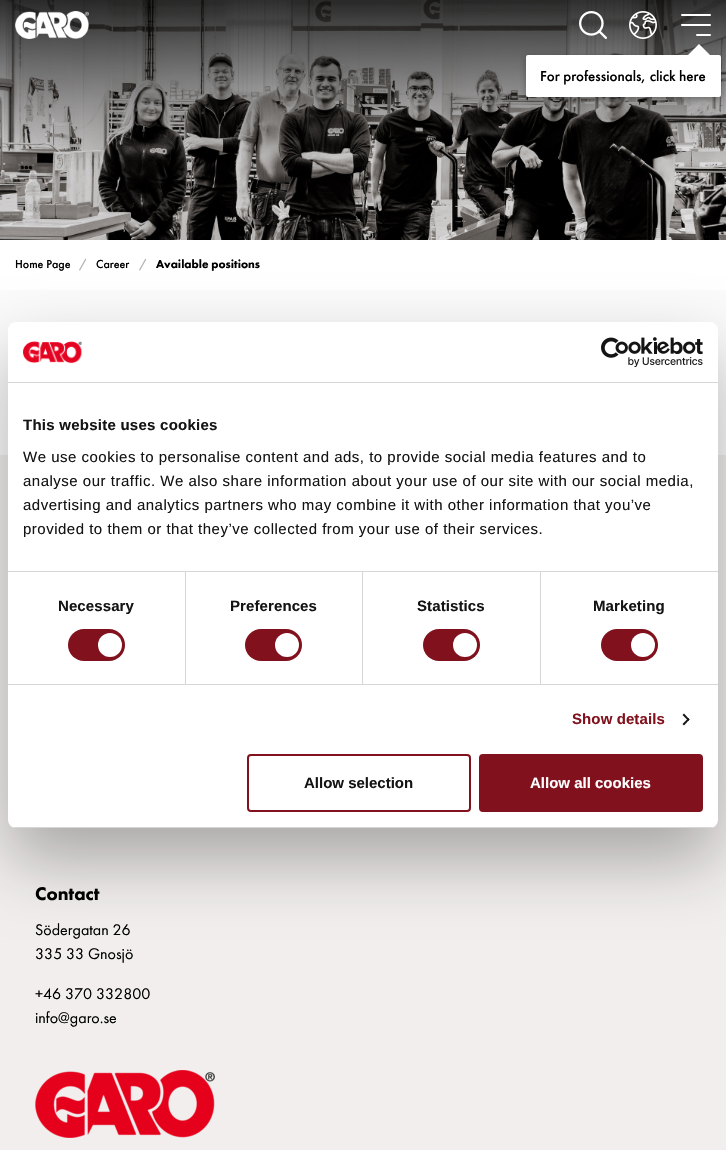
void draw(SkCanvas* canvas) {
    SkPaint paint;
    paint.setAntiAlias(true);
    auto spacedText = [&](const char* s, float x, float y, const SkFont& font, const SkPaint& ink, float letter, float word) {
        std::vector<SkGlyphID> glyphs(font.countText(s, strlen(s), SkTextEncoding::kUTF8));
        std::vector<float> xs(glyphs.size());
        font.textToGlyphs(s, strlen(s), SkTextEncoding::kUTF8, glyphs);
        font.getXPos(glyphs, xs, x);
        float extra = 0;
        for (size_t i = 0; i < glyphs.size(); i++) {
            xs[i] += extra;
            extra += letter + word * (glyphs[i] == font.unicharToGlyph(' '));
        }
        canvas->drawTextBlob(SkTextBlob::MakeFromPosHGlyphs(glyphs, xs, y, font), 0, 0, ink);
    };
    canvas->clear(0xFFFFFFFF);
    canvas->drawImageRect(SkImages::DeferredFromEncodedData(SkData::MakeFromFileName("img4.png")), SkRect::MakeXYWH(0, 0, 726, 240), SkSamplingOptions());
    canvas->drawImageRect(SkImages::DeferredFromEncodedData(SkData::MakeFromFileName("img1.png")), SkRect::MakeXYWH(15, 11, 74, 28), SkSamplingOptions());
    canvas->drawImageRect(SkImages::DeferredFromEncodedData(SkData::MakeFromFileName("img2.png")), SkRect::MakeXYWH(579, 11, 28, 28), SkSamplingOptions());
    canvas->drawImageRect(SkImages::DeferredFromEncodedData(SkData::MakeFromFileName("img3.png")), SkRect::MakeXYWH(629, 11, 28, 28), SkSamplingOptions());
    paint.setColor(0xFFFFFFFF);
    canvas->drawRoundRect(SkRect::MakeXYWH(681, 14, 30, 2), 1, 1, paint);
    canvas->drawRoundRect(SkRect::MakeXYWH(681, 24, 30, 2), 1, 1, paint);
    canvas->drawRoundRect(SkRect::MakeXYWH(696, 34, 15, 2), 1, 1, paint);
    paint.setColor(0x4D000000);
    paint.setMaskFilter(SkMaskFilter::MakeBlur(kNormal_SkBlurStyle, 3));
    canvas->drawRoundRect(SkRect::MakeXYWH(526, 57, 195, 42), 2, 2, paint);
    paint.setMaskFilter(nullptr);
    paint.setColor(0xFFFFFFFF);
    canvas->drawRoundRect(SkRect::MakeXYWH(526, 55, 195, 42), 2, 2, paint);
    canvas->drawPath(SkPathBuilder().moveTo(711, 56).lineTo(687, 56).lineTo(699, 44).close().detach(), paint);
    SkFont font1(fontMgr->matchFamilyStyle("Futura PT", SkFontStyle(500, SkFontStyle::kNormal_Width, SkFontStyle::kUpright_Slant)), 15);
    font1.setSubpixel(true);
    paint.setColor(0xFF000000);
    canvas->drawString("For professionals, click here", 540, 81, font1, paint);
    SkFont font2(fontMgr->matchFamilyStyle("Futura PT", SkFontStyle(500, SkFontStyle::kNormal_Width, SkFontStyle::kUpright_Slant)), 12);
    font2.setSubpixel(true);
    canvas->drawString("Home Page", 15, 268, font2, paint);
    paint.setColor(0xFFB3B3B3);
    canvas->drawString("/", 79, 268, font2, paint);
    paint.setColor(0xFF000000);
    canvas->drawString("Career", 96, 268, font2, paint);
    paint.setColor(0xFFB3B3B3);
    canvas->drawString("/", 139, 268, font2, paint);
    SkFont font3(fontMgr->matchFamilyStyle("Futura PT", SkFontStyle(900, SkFontStyle::kNormal_Width, SkFontStyle::kUpright_Slant)), 12);
    font3.setSubpixel(true);
    paint.setColor(0xFF000000);
    canvas->drawString("Available positions", 156, 268, font3, paint);
    paint.setColor(0xFFFCFBFB);
    canvas->drawRect(SkRect::MakeXYWH(0, 290, 726, 165), paint);
    paint.setColor(0xFFF1EEED);
    canvas->drawRect(SkRect::MakeXYWH(0, 455, 726, 695), paint);
    paint.setColor(0x4D000000);
    paint.setMaskFilter(SkMaskFilter::MakeBlur(kNormal_SkBlurStyle, 34));
    canvas->drawRoundRect(SkRect::MakeXYWH(8, 354, 710, 506), 8, 8, paint);
    paint.setMaskFilter(nullptr);
    paint.setColor(0xFFFFFFFF);
    canvas->drawRoundRect(SkRect::MakeXYWH(8, 322, 710, 506), 8, 8, paint);
    paint.setColor(0xFFD6D6D6);
    canvas->drawRect(SkRect::MakeXYWH(8, 382, 710, 1), paint);
    canvas->drawImageRect(SkImages::DeferredFromEncodedData(SkData::MakeFromFileName("img5.png")), SkRect::MakeXYWH(23, 341, 59, 23), SkSamplingOptions());
    canvas->drawImageRect(SkImages::DeferredFromEncodedData(SkData::MakeFromFileName("img6.png")), SkRect::MakeXYWH(601, 337, 102, 30), SkSamplingOptions());
    canvas->drawRect(SkRect::MakeXYWH(8, 571, 710, 1), paint);
    SkFont font4(fontMgr->matchFamilyStyle("Liberation Sans", SkFontStyle::Bold()), 15);
    font4.setSubpixel(true);
    paint.setColor(0xFF141414);
    spacedText("This website uses cookies", 23, 430, font4, paint, 0.25f, 0);
    SkFont font5(fontMgr->matchFamilyStyle("Liberation Sans", SkFontStyle::Normal()), 15);
    font5.setSubpixel(true);
    spacedText("We use cookies to personalise content and ads, to provide social media features and to", 23, 462, font5, paint, 0.5f, 0);
    spacedText("analyse our traffic. We also share information about your use of our site with our social media,", 23, 486, font5, paint, 0.5f, 0);
    spacedText("advertising and analytics partners who may combine it with other information that you’ve", 23, 510, font5, paint, 0.5f, 0);
    spacedText("provided to them or that they’ve collected from your use of their services.", 23, 534, font5, paint, 0.5f, 0);
    paint.setColor(0xFFD6D6D6);
    canvas->drawRect(SkRect::MakeXYWH(8, 684, 710, 1), paint);
    canvas->drawRect(SkRect::MakeXYWH(185, 572, 1, 112), paint);
    paint.setColor(0xFF141414);
    spacedText("Necessary", 58, 611, font4, paint, 0.1f, 0);
    paint.setColor(0xFF81111D);
    canvas->drawRoundRect(SkRect::MakeXYWH(68, 629, 57, 32), 16, 16, paint);
    paint.setColor(0xFFFFFFFF);
    canvas->drawCircle(110, 645, 12, paint);
    paint.setColor(0xFFD6D6D6);
    canvas->drawRect(SkRect::MakeXYWH(362, 572, 1, 112), paint);
    paint.setColor(0xFF141414);
    spacedText("Preferences", 230, 611, font4, paint, 0.1f, 0);
    paint.setColor(0xFF81111D);
    canvas->drawRoundRect(SkRect::MakeXYWH(245, 629, 57, 32), 16, 16, paint);
    paint.setColor(0xFFFFFFFF);
    canvas->drawCircle(287, 645, 12, paint);
    paint.setColor(0xFFD6D6D6);
    canvas->drawRect(SkRect::MakeXYWH(540, 572, 1, 112), paint);
    paint.setColor(0xFF141414);
    spacedText("Statistics", 417, 611, font4, paint, 0.1f, 0);
    paint.setColor(0xFF81111D);
    canvas->drawRoundRect(SkRect::MakeXYWH(423, 629, 57, 32), 16, 16, paint);
    paint.setColor(0xFFFFFFFF);
    canvas->drawCircle(465, 645, 12, paint);
    paint.setColor(0xFF141414);
    spacedText("Marketing", 593, 611, font4, paint, 0.1f, 0);
    paint.setColor(0xFF81111D);
    canvas->drawRoundRect(SkRect::MakeXYWH(601, 629, 57, 32), 16, 16, paint);
    paint.setColor(0xFFFFFFFF);
    canvas->drawCircle(643, 645, 12, paint);
    paint.setColor(0xFF81111D);
    spacedText("Show details", 572, 724, font4, paint, 0.1f, 0);
    paint.setColor(0xFF141414);
    canvas->drawPath(SkPathBuilder().moveTo(684, 713.5f).lineTo(689.5f, 719.5f).lineTo(688.5f, 721).lineTo(682.5f, 715).close().detach(), paint);
    canvas->drawPath(SkPathBuilder().moveTo(688.5f, 718).lineTo(689.5f, 719.5f).lineTo(684, 725.5f).lineTo(682.5f, 724).close().detach(), paint);
    canvas->save();
    canvas->clipPath(SkPathBuilder().moveTo(16, 322).lineTo(710, 322).cubicTo(714.5f, 322, 718, 325.5f, 718, 330).lineTo(718, 820).cubicTo(718, 824.5f, 714.5f, 828, 710, 828).lineTo(16, 828).cubicTo(11.5f, 828, 8, 824.5f, 8, 820).lineTo(8, 330).cubicTo(8, 325.5f, 11.5f, 322, 16, 322).close().detach(), true);
    paint.setColor(0xFFD6D6D6);
    canvas->drawRect(SkRect::MakeXYWH(8, 827, 710, 1), paint);
    canvas->restore();
    paint.setStyle(SkPaint::kStroke_Style);
    paint.setStrokeWidth(2);
    paint.setColor(0xFF81111D);
    canvas->drawRoundRect(SkRect::MakeXYWH(248, 755, 222, 56), 3, 3, paint);
    paint.setStyle(SkPaint::kFill_Style);
    paint.setColor(0xFF141414);
    canvas->drawString("Allow selection", 304, 788, font4, paint);
    paint.setColor(0xFF81111D);
    canvas->drawRoundRect(SkRect::MakeXYWH(480, 755, 222, 56), 3, 3, paint);
    paint.setStyle(SkPaint::kStroke_Style);
    canvas->drawRoundRect(SkRect::MakeXYWH(480, 755, 222, 56), 3, 3, paint);
    paint.setStyle(SkPaint::kFill_Style);
    paint.setColor(0xFFFFFFFF);
    canvas->drawString("Allow all cookies", 530, 788, font4, paint);
    SkFont font6(fontMgr->matchFamilyStyle("Futura PT", SkFontStyle(900, SkFontStyle::kNormal_Width, SkFontStyle::kUpright_Slant)), 19);
    font6.setSubpixel(true);
    paint.setColor(0xFF000000);
    canvas->drawString("Contact", 35, 900, font6, paint);
    SkFont font7(fontMgr->matchFamilyStyle("Futura PT", SkFontStyle::Normal()), 16);
    font7.setSubpixel(true);
    canvas->drawString("Södergatan 26", 35, 935, font7, paint);
    canvas->drawString("335 33 Gnosjö", 35, 959, font7, paint);
    canvas->drawString("+46 370 332800", 35, 999, font7, paint);
    canvas->drawString("info@garo.se", 35, 1023, font7, paint);
    canvas->drawImageRect(SkImages::DeferredFromEncodedData(SkData::MakeFromFileName("img7.png")), SkRect::MakeXYWH(35, 1070, 180, 68), SkSamplingOptions());
}
